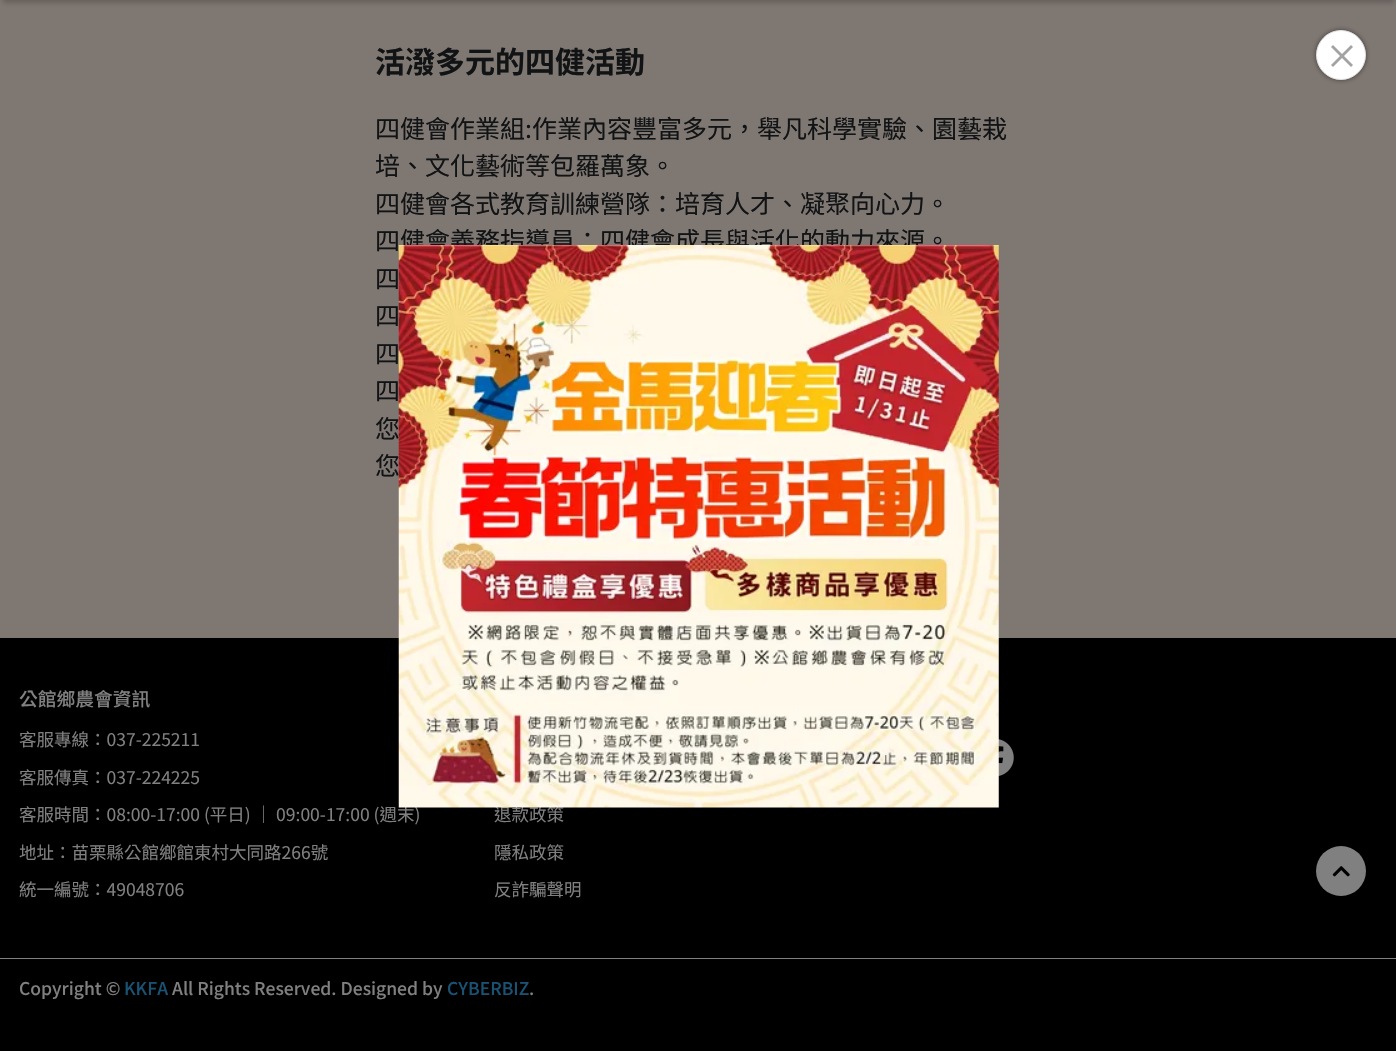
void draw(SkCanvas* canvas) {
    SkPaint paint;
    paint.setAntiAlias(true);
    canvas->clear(0xFF7F7772);
    paint.setColor(0x33000000);
    paint.setMaskFilter(SkMaskFilter::MakeBlur(kNormal_SkBlurStyle, 2.5f));
    canvas->drawRect(SkRect::MakeXYWH(3, -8, 1391, 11), paint);
    paint.setMaskFilter(nullptr);
    paint.setColor(0x80000000);
    paint.setMaskFilter(SkMaskFilter::MakeBlur(kNormal_SkBlurStyle, 2.5f));
    canvas->drawRoundRect(SkRect::MakeXYWH(1316, 30, 50, 50), 25, 25, paint);
    paint.setMaskFilter(nullptr);
    paint.setColor(0xFFFFFFFF);
    canvas->drawCircle(1341, 55, 24.5f, paint);
    paint.setStyle(SkPaint::kStroke_Style);
    paint.setStrokeWidth(1);
    paint.setColor(0xFFE2E2E2);
    canvas->drawCircle(1341, 55, 24.5f, paint);
    paint.setStyle(SkPaint::kFill_Style);
    paint.setColor(0xFFA3A3A3);
    canvas->drawPath(SkPathBuilder().moveTo(1333, 45).lineTo(1353, 65).lineTo(1351, 67).lineTo(1331, 47).close().detach(), paint);
    canvas->drawPath(SkPathBuilder().moveTo(1331, 65).lineTo(1351, 45).lineTo(1353, 47).lineTo(1333, 67).close().detach(), paint);
    SkFont font1(fontMgr->matchFamilyStyle("Noto Sans TC", SkFontStyle::Normal()), 25);
    font1.setSubpixel(true);
    paint.setColor(0xFF111315);
    canvas->drawString("四健會義務指導員：四健會成長與活化的動力來源。", 375, 250, font1, paint);
    canvas->drawString("您", 375, 438, font1, paint);
    canvas->drawString("您", 375, 475, font1, paint);
    paint.setColor(0xFF000000);
    canvas->drawRect(SkRect::MakeXYWH(0, 638, 1396, 413), paint);
    SkFont font2(fontMgr->matchFamilyStyle("Noto Sans TC", SkFontStyle::Normal()), 17.5f);
    font2.setSubpixel(true);
    paint.setColor(0xFF808080);
    canvas->drawString("客服時間：08:00-17:00 (平日) ｜ 09:00-17:00 (週末)", 19, 821, font2, paint);
    canvas->drawString("退款政策", 494, 821, font2, paint);
    canvas->drawImageRect(SkImages::DeferredFromEncodedData(SkData::MakeFromFileName("img3.png")), SkRect::MakeXYWH(998, 739, 16, 37), SkSamplingOptions());
    canvas->drawImageRect(SkImages::DeferredFromEncodedData(SkData::MakeFromFileName("img1.png")), SkRect::MakeXYWH(398, 245, 601, 563), SkSamplingOptions());
    canvas->drawCircle(1341, 871, 25, paint);
    canvas->drawImageRect(SkImages::DeferredFromEncodedData(SkData::MakeFromFileName("img2.png")), SkRect::MakeXYWH(1332, 866, 18, 11), SkSamplingOptions());
    SkFont font3(fontMgr->matchFamilyStyle("Noto Sans TC", SkFontStyle::Bold()), 30);
    font3.setSubpixel(true);
    paint.setColor(0xFF111315);
    canvas->drawString("活潑多元的四健活動", 375, 73, font3, paint);
    canvas->drawString("四健會作業組:作業內容豐富多元，舉凡科學實驗、園藝栽", 375, 138, font1, paint);
    canvas->drawString("培、文化藝術等包羅萬象。", 375, 175, font1, paint);
    canvas->drawString("四健會各式教育訓練營隊：培育人才、凝聚向心力。", 375, 213, font1, paint);
    canvas->drawString("四", 375, 288, font1, paint);
    canvas->drawString("四", 375, 325, font1, paint);
    canvas->drawString("四", 375, 363, font1, paint);
    canvas->drawString("四", 375, 400, font1, paint);
    SkFont font4(fontMgr->matchFamilyStyle("Noto Sans TC", SkFontStyle(500, SkFontStyle::kNormal_Width, SkFontStyle::kUpright_Slant)), 18.75f);
    font4.setSubpixel(true);
    paint.setColor(0xFF808080);
    canvas->drawString("公館鄉農會資訊", 19, 706, font4, paint);
    canvas->drawString("客服專線：037-225211", 19, 746, font2, paint);
    canvas->drawString("客服傳真：037-224225", 19, 784, font2, paint);
    canvas->drawString("地址：苗栗縣公館鄉館東村大同路266號", 19, 859, font2, paint);
    canvas->drawString("統一編號：49048706", 19, 896, font2, paint);
    canvas->drawString("隱私政策", 494, 859, font2, paint);
    canvas->drawString("反詐騙聲明", 494, 896, font2, paint);
    canvas->drawRect(SkRect::MakeXYWH(0, 958, 1396, 1), paint);
    SkFont font5(fontMgr->matchFamilyStyle("Noto Sans TC", SkFontStyle(500, SkFontStyle::kNormal_Width, SkFontStyle::kUpright_Slant)), 17.5f);
    font5.setSubpixel(true);
    canvas->drawString("Copyright ©", 19, 995, font5, paint);
    paint.setColor(0xFF1A5274);
    canvas->drawString("KKFA", 124, 995, font5, paint);
    paint.setColor(0xFF808080);
    canvas->drawString("All Rights Reserved. Designed by", 172, 995, font5, paint);
    paint.setColor(0xFF1A5274);
    canvas->drawString("CYBERBIZ", 447, 995, font5, paint);
    paint.setColor(0xFF808080);
    canvas->drawString(".", 529, 995, font5, paint);
}
